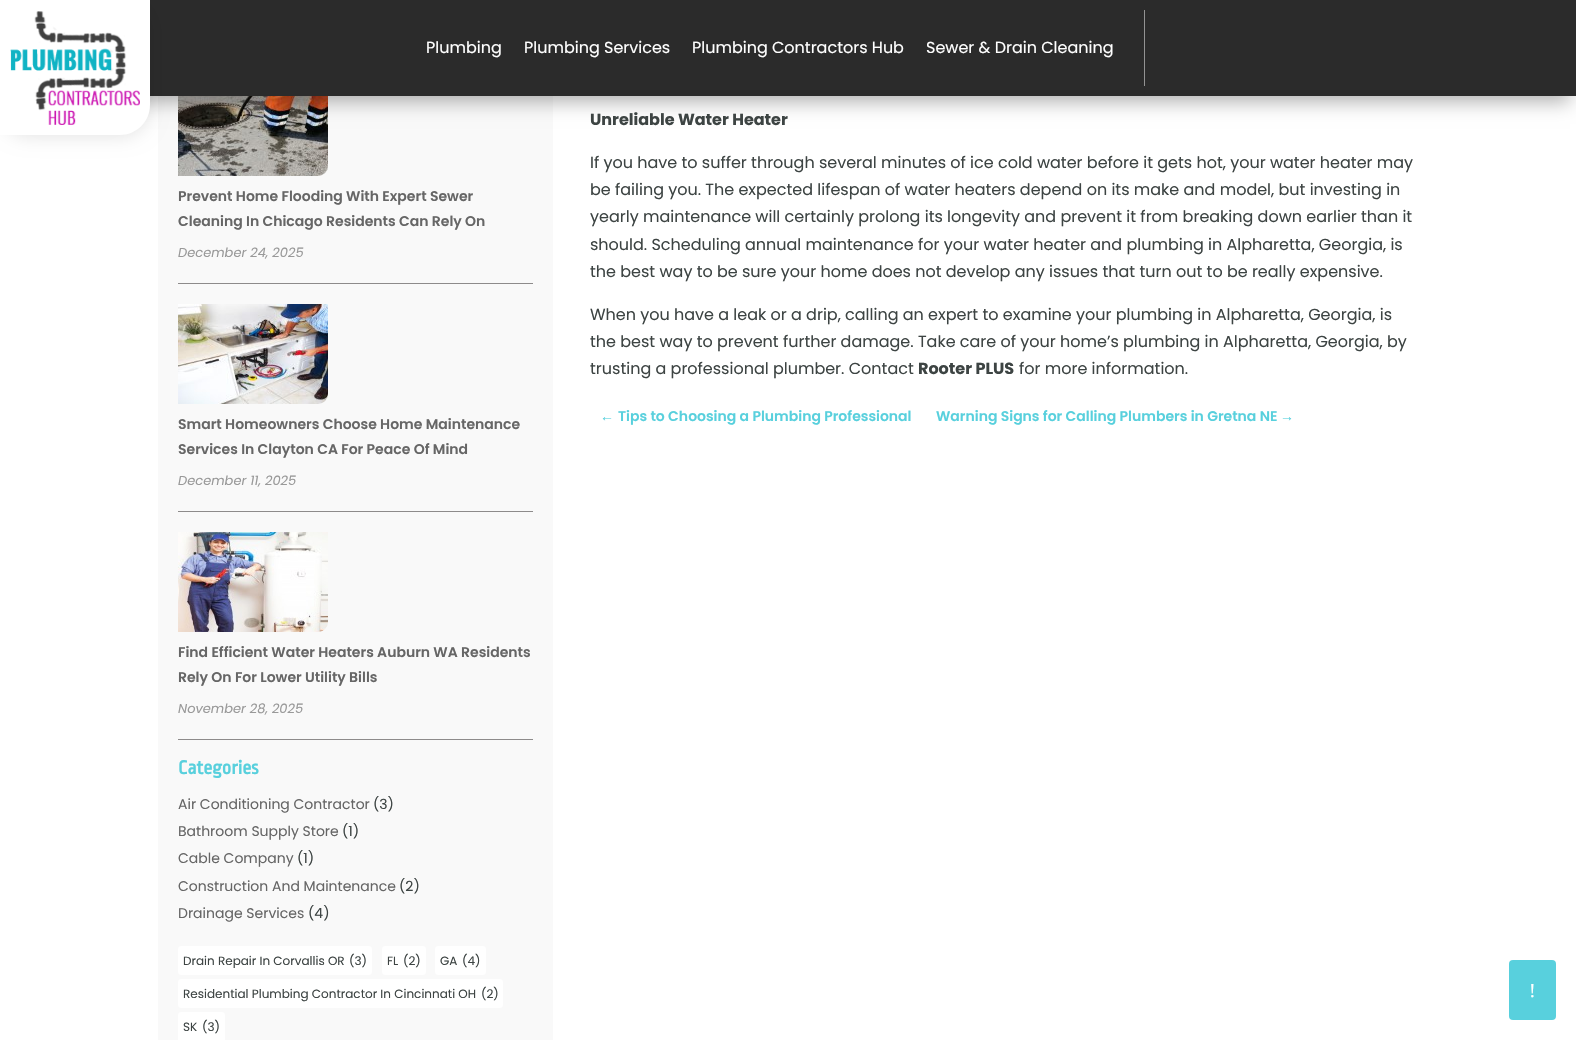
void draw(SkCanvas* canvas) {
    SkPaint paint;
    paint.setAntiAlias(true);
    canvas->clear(0xFFFFFFFF);
    paint.setColor(0xFFF9F9F9);
    canvas->drawRect(SkRect::MakeXYWH(158, 96, 395, 944), paint);
    canvas->drawImageRect(SkImages::DeferredFromEncodedData(SkData::MakeFromFileName("img2.png")), SkRect::MakeXYWH(178, 96, 150, 80), SkSamplingOptions());
    paint.setColor(0x4D000000);
    paint.setMaskFilter(SkMaskFilter::MakeBlur(kNormal_SkBlurStyle, 9));
    canvas->drawRect(SkRect::MakeXYWH(6, 18, 1564, 84), paint);
    paint.setMaskFilter(nullptr);
    paint.setColor(0xFF2B2B2B);
    canvas->drawRect(SkRect::MakeXYWH(150, 0, 1426, 96), paint);
    paint.setColor(0xFF939393);
    canvas->drawRect(SkRect::MakeXYWH(1144, 10, 1, 76), paint);
    paint.setColor(0x1A000000);
    paint.setMaskFilter(SkMaskFilter::MakeBlur(kNormal_SkBlurStyle, 9));
    canvas->drawRoundRect(SkRect::MakeXYWH(0, 2, 150, 135), 30, 30, paint);
    paint.setMaskFilter(nullptr);
    paint.setColor(0xFFFFFFFF);
    canvas->drawPath(SkPathBuilder().moveTo(0, 0).lineTo(150, 0).lineTo(150, 105).cubicTo(150, 121.5f, 136.5f, 135, 120, 135).lineTo(0, 135).close().detach(), paint);
    canvas->drawImageRect(SkImages::DeferredFromEncodedData(SkData::MakeFromFileName("img1.png")), SkRect::MakeXYWH(10, 11, 130, 114), SkSamplingOptions());
    SkFont font1(fontMgr->matchFamilyStyle("Poppins", SkFontStyle::Normal()), 16);
    font1.setSubpixel(true);
    canvas->drawString("Plumbing", 426, 53, font1, paint);
    canvas->drawString("Plumbing Services", 524, 53, font1, paint);
    canvas->drawString("Plumbing Contractors Hub", 692, 53, font1, paint);
    canvas->drawString("Sewer & Drain Cleaning", 926, 53, font1, paint);
    paint.setColor(0xFF8D8B8B);
    canvas->drawRect(SkRect::MakeXYWH(178, 283, 355, 1), paint);
    SkFont font2(fontMgr->matchFamilyStyle("Poppins", SkFontStyle(600, SkFontStyle::kNormal_Width, SkFontStyle::kUpright_Slant)), 14);
    font2.setSubpixel(true);
    paint.setColor(0xFF666666);
    canvas->drawString("Prevent Home Flooding With Expert Sewer", 178, 201, font2, paint);
    canvas->drawString("Cleaning In Chicago Residents Can Rely On", 178, 226, font2, paint);
    SkFont font3(fontMgr->matchFamilyStyle("Poppins", SkFontStyle::Italic()), 13);
    font3.setSubpixel(true);
    paint.setColor(0xFF999999);
    canvas->drawString("December 24, 2025", 178, 257, font3, paint);
    paint.setColor(0xFF8D8B8B);
    canvas->drawRect(SkRect::MakeXYWH(178, 511, 355, 1), paint);
    canvas->drawImageRect(SkImages::DeferredFromEncodedData(SkData::MakeFromFileName("img3.png")), SkRect::MakeXYWH(178, 304, 150, 100), SkSamplingOptions());
    paint.setColor(0xFF666666);
    canvas->drawString("Smart Homeowners Choose Home Maintenance", 178, 429, font2, paint);
    canvas->drawString("Services In Clayton CA For Peace Of Mind", 178, 454, font2, paint);
    paint.setColor(0xFF999999);
    canvas->drawString("December 11, 2025", 178, 485, font3, paint);
    paint.setColor(0xFF8D8B8B);
    canvas->drawRect(SkRect::MakeXYWH(178, 739, 355, 1), paint);
    canvas->drawImageRect(SkImages::DeferredFromEncodedData(SkData::MakeFromFileName("img4.png")), SkRect::MakeXYWH(178, 532, 150, 100), SkSamplingOptions());
    paint.setColor(0xFF666666);
    canvas->drawString("Find Efficient Water Heaters Auburn WA Residents", 178, 657, font2, paint);
    canvas->drawString("Rely On For Lower Utility Bills", 178, 682, font2, paint);
    paint.setColor(0xFF999999);
    canvas->drawString("November 28, 2025", 178, 713, font3, paint);
    SkFont font4(fontMgr->matchFamilyStyle("Ropa Sans", SkFontStyle::Bold()), 20);
    font4.setSubpixel(true);
    paint.setColor(0xFF58D0DD);
    canvas->drawString("Categories", 178, 774, font4, paint);
    SkFont font5(fontMgr->matchFamilyStyle("Poppins", SkFontStyle::Normal()), 14);
    font5.setSubpixel(true);
    paint.setColor(0xFF666666);
    canvas->drawString("Air Conditioning Contractor", 178, 809, font5, paint);
    paint.setColor(0xFF3D4443);
    canvas->drawString("(3)", 373, 809, font5, paint);
    paint.setColor(0xFF666666);
    canvas->drawString("Bathroom Supply Store", 178, 836, font5, paint);
    paint.setColor(0xFF3D4443);
    canvas->drawString("(1)", 342, 836, font5, paint);
    paint.setColor(0xFF666666);
    canvas->drawString("Cable Company", 178, 863, font5, paint);
    paint.setColor(0xFF3D4443);
    canvas->drawString("(1)", 297, 863, font5, paint);
    paint.setColor(0xFF666666);
    canvas->drawString("Construction And Maintenance", 178, 891, font5, paint);
    paint.setColor(0xFF3D4443);
    canvas->drawString("(2)", 399, 891, font5, paint);
    paint.setColor(0xFF666666);
    canvas->drawString("Drainage Services", 178, 918, font5, paint);
    paint.setColor(0xFF3D4443);
    canvas->drawString("(4)", 308, 918, font5, paint);
    paint.setColor(0xFFFFFFFF);
    canvas->drawRoundRect(SkRect::MakeXYWH(178, 946, 194, 29), 3, 3, paint);
    SkFont font6(fontMgr->matchFamilyStyle("Poppins", SkFontStyle::Normal()), 12);
    font6.setSubpixel(true);
    paint.setColor(0xFF3D4443);
    canvas->drawString("Drain Repair In Corvallis OR", 183, 965, font6, paint);
    canvas->drawString("(3)", 349, 965, font6, paint);
    paint.setColor(0xFFFFFFFF);
    canvas->drawRoundRect(SkRect::MakeXYWH(382, 946, 44, 29), 3, 3, paint);
    paint.setColor(0xFF3D4443);
    canvas->drawString("FL", 387, 965, font6, paint);
    canvas->drawString("(2)", 403, 965, font6, paint);
    paint.setColor(0xFFFFFFFF);
    canvas->drawRoundRect(SkRect::MakeXYWH(435, 946, 51, 29), 3, 3, paint);
    paint.setColor(0xFF3D4443);
    canvas->drawString("GA", 440, 965, font6, paint);
    canvas->drawString("(4)", 462, 965, font6, paint);
    paint.setColor(0xFFFFFFFF);
    canvas->drawRoundRect(SkRect::MakeXYWH(178, 979, 325, 29), 3, 3, paint);
    paint.setColor(0xFF3D4443);
    canvas->drawString("Residential Plumbing Contractor In Cincinnati OH", 183, 998, font6, paint);
    canvas->drawString("(2)", 481, 998, font6, paint);
    paint.setColor(0xFFFFFFFF);
    canvas->drawRoundRect(SkRect::MakeXYWH(178, 1012, 47, 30), 3, 3, paint);
    paint.setColor(0xFF3D4443);
    canvas->drawString("SK", 183, 1031, font6, paint);
    canvas->drawString("(3)", 202, 1031, font6, paint);
    SkFont font7(fontMgr->matchFamilyStyle("Poppins", SkFontStyle::Bold()), 16);
    font7.setSubpixel(true);
    canvas->drawString("Unreliable Water Heater", 590, 125, font7, paint);
    canvas->drawString("If you have to suffer through several minutes of ice cold water before it gets hot, your water heater may", 590, 168, font1, paint);
    canvas->drawString("be failing you. The expected lifespan of water heaters depend on its make and model, but investing in", 590, 195, font1, paint);
    canvas->drawString("yearly maintenance will certainly prolong its longevity and prevent it from breaking down earlier than it", 590, 222, font1, paint);
    canvas->drawString("should. Scheduling annual maintenance for your water heater and plumbing in Alpharetta, Georgia, is", 590, 250, font1, paint);
    canvas->drawString("the best way to be sure your home does not develop any issues that turn out to be really expensive.", 590, 277, font1, paint);
    canvas->drawString("When you have a leak or a drip, calling an expert to examine your plumbing in Alpharetta, Georgia, is", 590, 320, font1, paint);
    canvas->drawString("the best way to prevent further damage. Take care of your home’s plumbing in Alpharetta, Georgia, by", 590, 347, font1, paint);
    canvas->drawString("trusting a professional plumber. Contact", 590, 374, font1, paint);
    canvas->drawString("Rooter PLUS", 918, 374, font7, paint);
    canvas->drawString("for more information.", 1019, 374, font1, paint);
    SkFont font8(fontMgr->matchFamilyStyle("Liberation Sans", SkFontStyle::Bold()), 14);
    font8.setSubpixel(true);
    paint.setColor(0xFF58D0DD);
    canvas->drawString("←", 600, 421, font8, paint);
    canvas->drawString("Tips to Choosing a Plumbing Professional", 618, 421, font2, paint);
    canvas->drawString("Warning Signs for Calling Plumbers in Gretna NE", 936, 421, font2, paint);
    canvas->drawString("→", 1280, 421, font8, paint);
    canvas->drawRoundRect(SkRect::MakeXYWH(1509, 960, 47, 60), 4, 4, paint);
    SkFont font9(fontMgr->matchFamilyStyle("Liberation Serif", SkFontStyle::Normal()), 20);
    font9.setSubpixel(true);
    paint.setColor(0xFFFFFFFF);
    canvas->drawString("!", 1529, 997, font9, paint);
}
